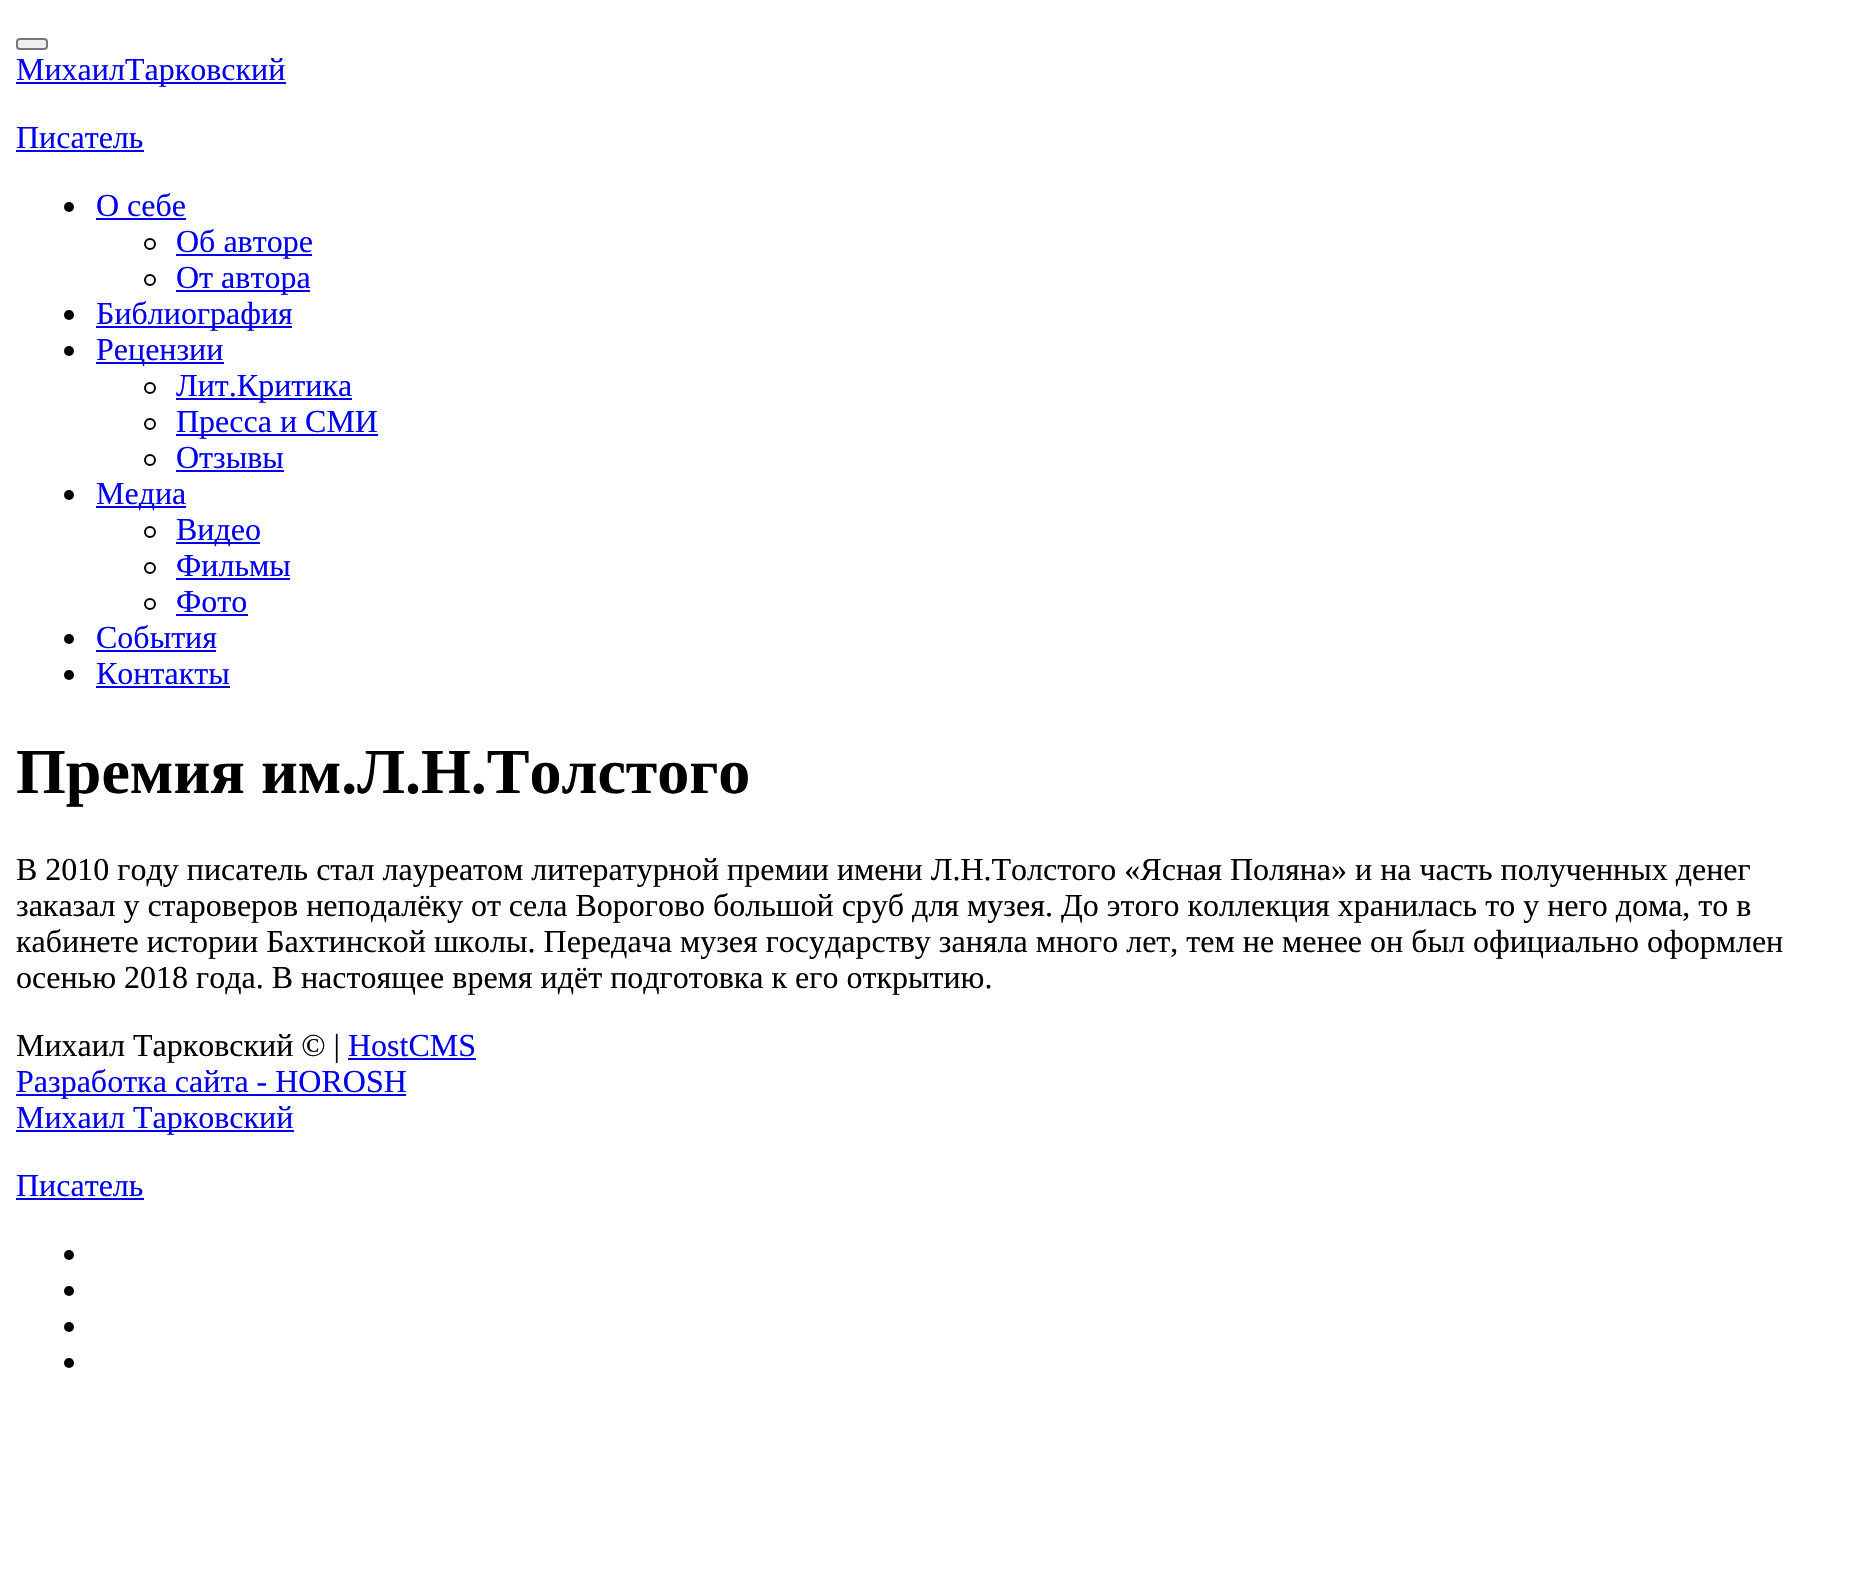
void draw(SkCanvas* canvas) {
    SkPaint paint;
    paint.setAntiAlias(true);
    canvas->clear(0xFFFFFFFF);
    paint.setColor(0xFFEFEFEF);
    canvas->drawRoundRect(SkRect::MakeXYWH(17, 39, 30, 10), 3, 3, paint);
    paint.setStyle(SkPaint::kStroke_Style);
    paint.setStrokeWidth(2);
    paint.setColor(0xFF767676);
    canvas->drawRoundRect(SkRect::MakeXYWH(17, 39, 30, 10), 3, 3, paint);
    paint.setStyle(SkPaint::kFill_Style);
    paint.setColor(0xFF0000EE);
    canvas->drawRect(SkRect::MakeXYWH(16, 82, 270, 2), paint);
    SkFont font1(fontMgr->matchFamilyStyle("Liberation Serif", SkFontStyle::Normal()), 32);
    font1.setSubpixel(true);
    canvas->drawString("МихаилТарковский", 16, 80, font1, paint);
    canvas->drawString("Писатель", 16, 148, font1, paint);
    canvas->drawRect(SkRect::MakeXYWH(16, 150, 128, 2), paint);
    paint.setColor(0xFF000000);
    canvas->drawCircle(69, 207, 5, paint);
    paint.setColor(0xFF0000EE);
    canvas->drawString("О себе", 96, 216, font1, paint);
    canvas->drawRect(SkRect::MakeXYWH(96, 218, 90, 2), paint);
    paint.setStyle(SkPaint::kStroke_Style);
    paint.setColor(0xFF000000);
    canvas->drawCircle(150, 244, 5, paint);
    paint.setStyle(SkPaint::kFill_Style);
    paint.setColor(0xFF0000EE);
    canvas->drawRect(SkRect::MakeXYWH(176, 254, 136, 2), paint);
    canvas->drawString("Об авторе", 176, 252, font1, paint);
    paint.setStyle(SkPaint::kStroke_Style);
    paint.setColor(0xFF000000);
    canvas->drawCircle(150, 280, 5, paint);
    paint.setStyle(SkPaint::kFill_Style);
    paint.setColor(0xFF0000EE);
    canvas->drawRect(SkRect::MakeXYWH(176, 290, 134, 2), paint);
    canvas->drawString("От автора", 176, 288, font1, paint);
    paint.setColor(0xFF000000);
    canvas->drawCircle(69, 315, 5, paint);
    paint.setColor(0xFF0000EE);
    canvas->drawRect(SkRect::MakeXYWH(96, 326, 196, 2), paint);
    canvas->drawString("Библиография", 96, 324, font1, paint);
    paint.setColor(0xFF000000);
    canvas->drawCircle(69, 351, 5, paint);
    paint.setColor(0xFF0000EE);
    canvas->drawRect(SkRect::MakeXYWH(96, 362, 128, 2), paint);
    canvas->drawString("Рецензии", 96, 360, font1, paint);
    paint.setStyle(SkPaint::kStroke_Style);
    paint.setColor(0xFF000000);
    canvas->drawCircle(150, 388, 5, paint);
    paint.setStyle(SkPaint::kFill_Style);
    paint.setColor(0xFF0000EE);
    canvas->drawRect(SkRect::MakeXYWH(176, 398, 176, 2), paint);
    canvas->drawString("Лит.Критика", 176, 396, font1, paint);
    paint.setStyle(SkPaint::kStroke_Style);
    paint.setColor(0xFF000000);
    canvas->drawCircle(150, 424, 5, paint);
    paint.setStyle(SkPaint::kFill_Style);
    paint.setColor(0xFF0000EE);
    canvas->drawRect(SkRect::MakeXYWH(176, 434, 202, 2), paint);
    canvas->drawString("Пресса и СМИ", 176, 432, font1, paint);
    paint.setStyle(SkPaint::kStroke_Style);
    paint.setColor(0xFF000000);
    canvas->drawCircle(150, 460, 5, paint);
    paint.setStyle(SkPaint::kFill_Style);
    paint.setColor(0xFF0000EE);
    canvas->drawString("Отзывы", 176, 468, font1, paint);
    canvas->drawRect(SkRect::MakeXYWH(176, 470, 108, 2), paint);
    paint.setColor(0xFF000000);
    canvas->drawCircle(69, 495, 5, paint);
    paint.setColor(0xFF0000EE);
    canvas->drawRect(SkRect::MakeXYWH(96, 506, 90, 2), paint);
    canvas->drawString("Медиа", 96, 504, font1, paint);
    paint.setStyle(SkPaint::kStroke_Style);
    paint.setColor(0xFF000000);
    canvas->drawCircle(150, 532, 5, paint);
    paint.setStyle(SkPaint::kFill_Style);
    paint.setColor(0xFF0000EE);
    canvas->drawRect(SkRect::MakeXYWH(176, 542, 84, 2), paint);
    canvas->drawString("Видео", 176, 540, font1, paint);
    paint.setStyle(SkPaint::kStroke_Style);
    paint.setColor(0xFF000000);
    canvas->drawCircle(150, 568, 5, paint);
    paint.setStyle(SkPaint::kFill_Style);
    paint.setColor(0xFF0000EE);
    canvas->drawString("Фильмы", 176, 576, font1, paint);
    canvas->drawRect(SkRect::MakeXYWH(176, 578, 114, 2), paint);
    paint.setStyle(SkPaint::kStroke_Style);
    paint.setColor(0xFF000000);
    canvas->drawCircle(150, 604, 5, paint);
    paint.setStyle(SkPaint::kFill_Style);
    paint.setColor(0xFF0000EE);
    canvas->drawString("Фото", 176, 612, font1, paint);
    canvas->drawRect(SkRect::MakeXYWH(176, 614, 72, 2), paint);
    paint.setColor(0xFF000000);
    canvas->drawCircle(69, 639, 5, paint);
    paint.setColor(0xFF0000EE);
    canvas->drawString("События", 96, 648, font1, paint);
    canvas->drawRect(SkRect::MakeXYWH(96, 650, 120, 2), paint);
    paint.setColor(0xFF000000);
    canvas->drawCircle(69, 675, 5, paint);
    paint.setColor(0xFF0000EE);
    canvas->drawString("Контакты", 96, 684, font1, paint);
    canvas->drawRect(SkRect::MakeXYWH(96, 686, 134, 2), paint);
    SkFont font2(fontMgr->matchFamilyStyle("Liberation Serif", SkFontStyle::Bold()), 64);
    font2.setSubpixel(true);
    paint.setColor(0xFF000000);
    canvas->drawString("Премия им.Л.Н.Толстого", 16, 793, font2, paint);
    canvas->drawString("В 2010 году писатель стал лауреатом литературной премии имени Л.Н.Толстого «Ясная Поляна» и на часть полученных денег", 16, 880, font1, paint);
    canvas->drawString("заказал у староверов неподалёку от села Ворогово большой сруб для музея. До этого коллекция хранилась то у него дома, то в", 16, 916, font1, paint);
    canvas->drawString("кабинете истории Бахтинской школы. Передача музея государству заняла много лет, тем не менее он был официально оформлен", 16, 952, font1, paint);
    canvas->drawString("осенью 2018 года. В настоящее время идёт подготовка к его открытию.", 16, 988, font1, paint);
    canvas->drawString("Михаил Тарковский © |", 16, 1056, font1, paint);
    paint.setColor(0xFF0000EE);
    canvas->drawString("HostCMS", 348, 1056, font1, paint);
    canvas->drawRect(SkRect::MakeXYWH(348, 1058, 128, 2), paint);
    canvas->drawRect(SkRect::MakeXYWH(16, 1094, 390, 2), paint);
    canvas->drawString("Разработка сайта - HOROSH", 16, 1092, font1, paint);
    canvas->drawRect(SkRect::MakeXYWH(16, 1130, 278, 2), paint);
    canvas->drawString("Михаил Тарковский", 16, 1128, font1, paint);
    canvas->drawString("Писатель", 16, 1196, font1, paint);
    canvas->drawRect(SkRect::MakeXYWH(16, 1198, 128, 2), paint);
    paint.setColor(0xFF000000);
    canvas->drawCircle(69, 1255, 5, paint);
    canvas->drawCircle(69, 1291, 5, paint);
    canvas->drawCircle(69, 1327, 5, paint);
    canvas->drawCircle(69, 1363, 5, paint);
}
